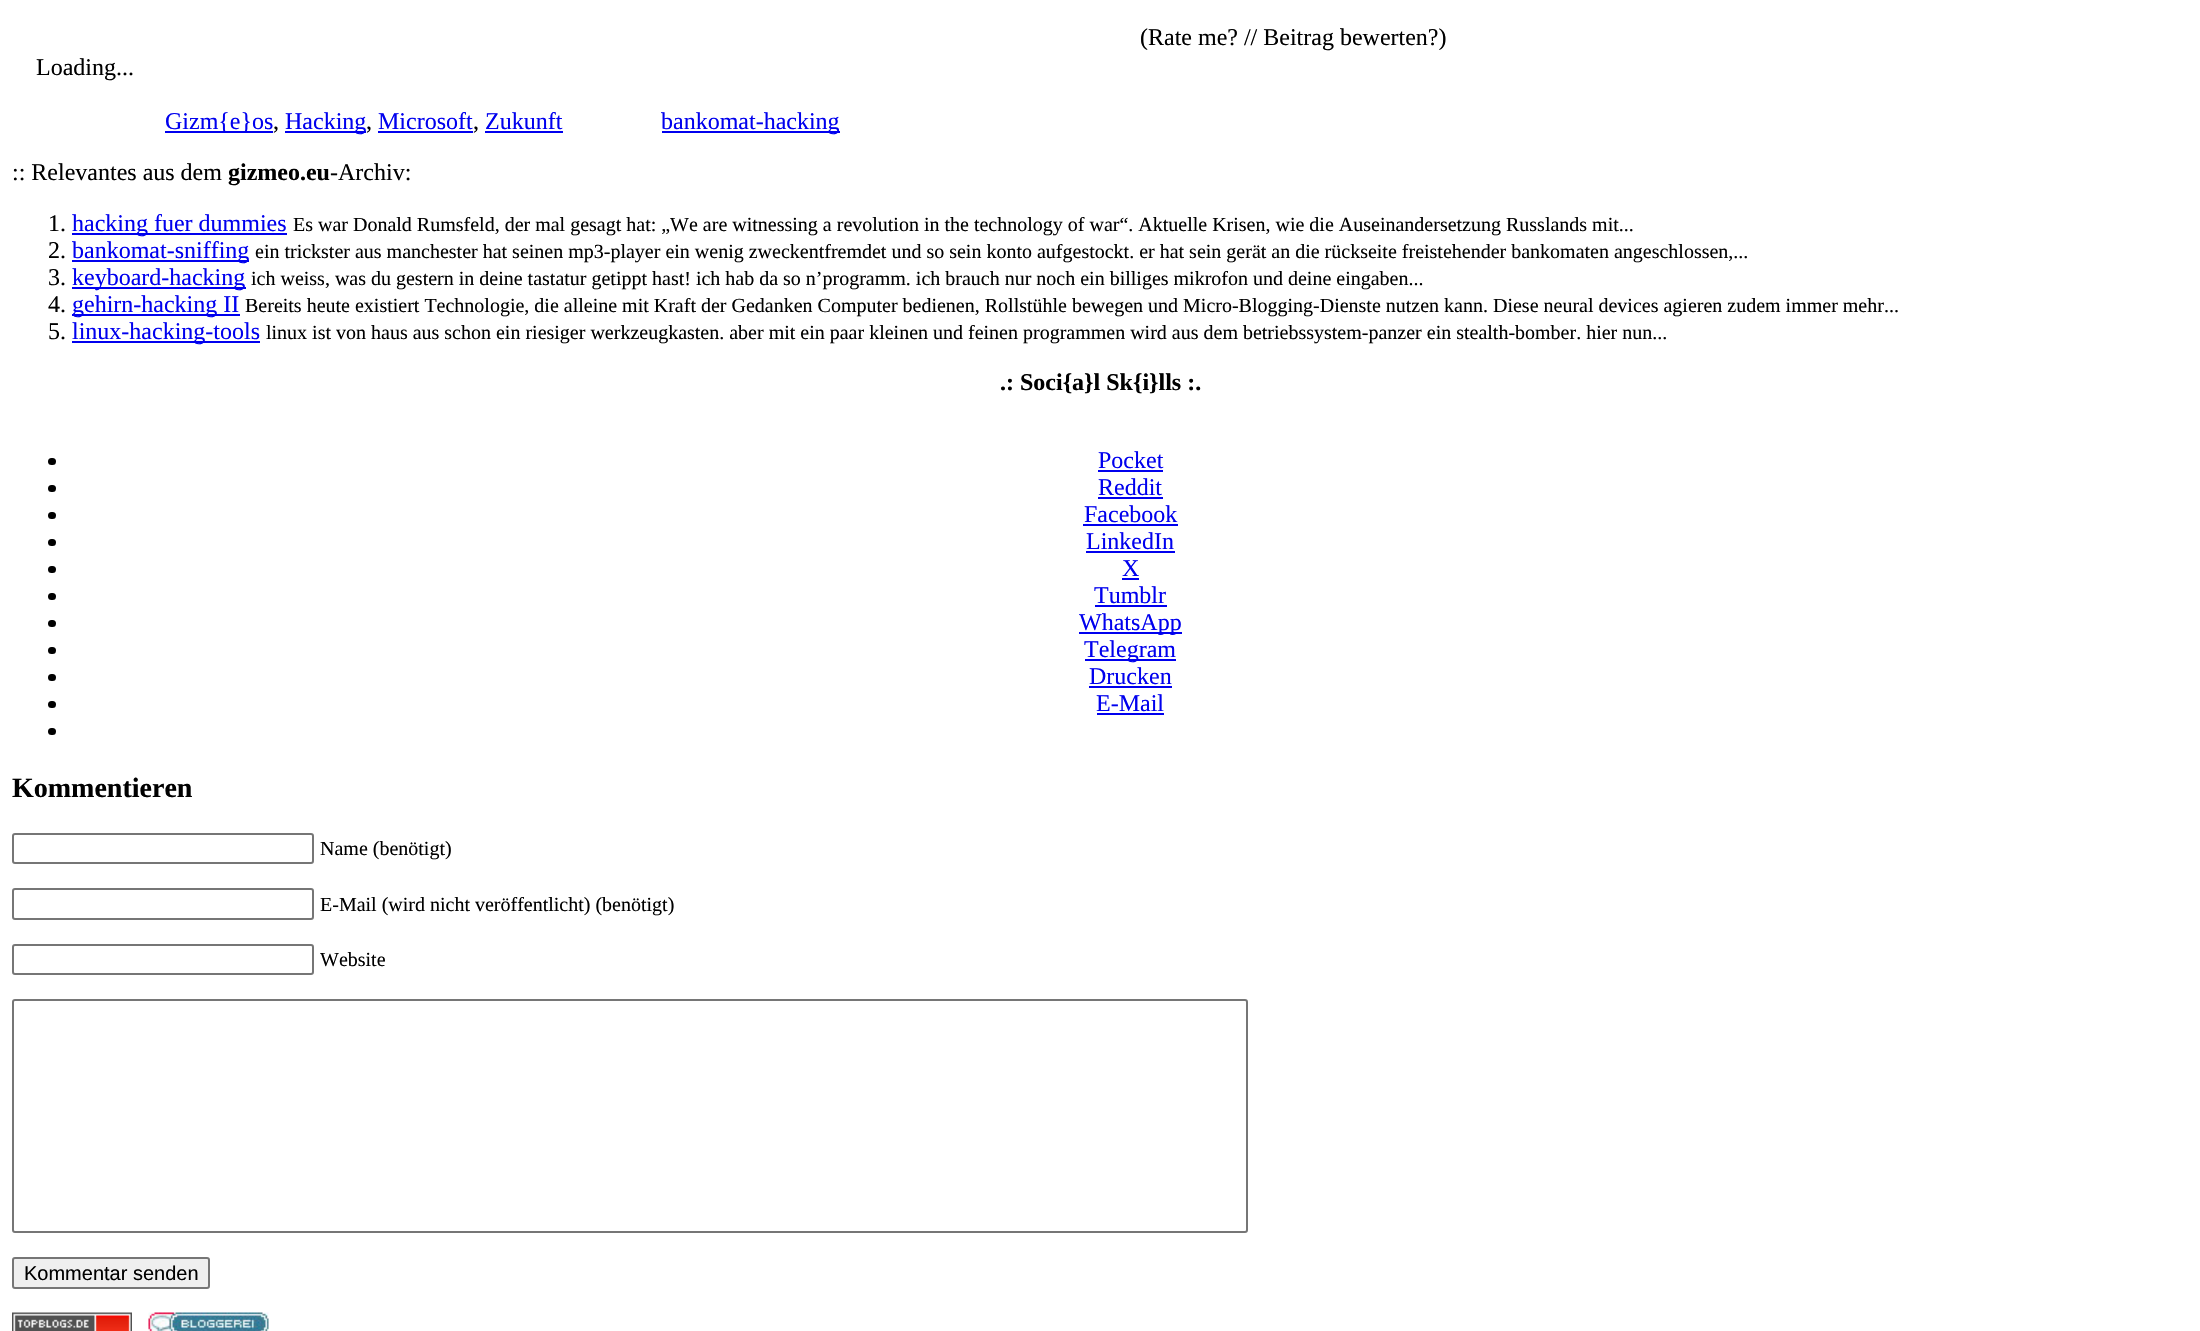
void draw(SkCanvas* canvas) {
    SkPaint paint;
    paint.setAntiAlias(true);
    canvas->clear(0xFFFFFFFF);
    SkFont font1(fontMgr->matchFamilyStyle("Liberation Serif", SkFontStyle::Normal()), 24);
    font1.setSubpixel(true);
    paint.setColor(0xFF000000);
    canvas->drawString("(Rate me? // Beitrag bewerten?)", 1140, 45, font1, paint);
    canvas->drawString("Loading...", 36, 75, font1, paint);
    paint.setColor(0xFF0000EE);
    canvas->drawRect(SkRect::MakeXYWH(165, 131, 108, 2), paint);
    canvas->drawString("Gizm{e}os", 165, 129, font1, paint);
    paint.setColor(0xFF000000);
    canvas->drawString(",", 273, 129, font1, paint);
    paint.setColor(0xFF0000EE);
    canvas->drawRect(SkRect::MakeXYWH(285, 131, 81, 2), paint);
    canvas->drawString("Hacking", 285, 129, font1, paint);
    paint.setColor(0xFF000000);
    canvas->drawString(",", 366, 129, font1, paint);
    paint.setColor(0xFF0000EE);
    canvas->drawString("Microsoft", 378, 129, font1, paint);
    canvas->drawRect(SkRect::MakeXYWH(378, 131, 95, 2), paint);
    paint.setColor(0xFF000000);
    canvas->drawString(",", 473, 129, font1, paint);
    paint.setColor(0xFF0000EE);
    canvas->drawString("Zukunft", 485, 129, font1, paint);
    canvas->drawRect(SkRect::MakeXYWH(485, 131, 78, 2), paint);
    canvas->drawRect(SkRect::MakeXYWH(662, 131, 178, 2), paint);
    canvas->drawString("bankomat-hacking", 661, 129, font1, paint);
    paint.setColor(0xFF000000);
    canvas->drawString(":: Relevantes aus dem", 12, 180, font1, paint);
    SkFont font2(fontMgr->matchFamilyStyle("Liberation Serif", SkFontStyle::Bold()), 24);
    font2.setSubpixel(true);
    canvas->drawString("gizmeo.eu", 228, 180, font2, paint);
    canvas->drawString("-Archiv:", 330, 180, font1, paint);
    canvas->drawString("1.", 48, 231, font1, paint);
    paint.setColor(0xFF0000EE);
    canvas->drawRect(SkRect::MakeXYWH(72, 233, 215, 2), paint);
    canvas->drawString("hacking fuer dummies", 72, 231, font1, paint);
    SkFont font3(fontMgr->matchFamilyStyle("Liberation Serif", SkFontStyle::Normal()), 20);
    font3.setSubpixel(true);
    paint.setColor(0xFF000000);
    canvas->drawString("Es war Donald Rumsfeld, der mal gesagt hat: „We are witnessing a revolution in the technology of war“. Aktuelle Krisen, wie die Auseinandersetzung Russlands mit...", 293, 231, font3, paint);
    canvas->drawString("2.", 48, 258, font1, paint);
    paint.setColor(0xFF0000EE);
    canvas->drawRect(SkRect::MakeXYWH(72, 260, 177, 2), paint);
    canvas->drawString("bankomat-sniffing", 72, 258, font1, paint);
    paint.setColor(0xFF000000);
    canvas->drawString("ein trickster aus manchester hat seinen mp3-player ein wenig zweckentfremdet und so sein konto aufgestockt. er hat sein gerät an die rückseite freistehender bankomaten angeschlossen,...", 255, 258, font3, paint);
    canvas->drawString("3.", 48, 285, font1, paint);
    paint.setColor(0xFF0000EE);
    canvas->drawRect(SkRect::MakeXYWH(72, 287, 174, 2), paint);
    canvas->drawString("keyboard-hacking", 72, 285, font1, paint);
    paint.setColor(0xFF000000);
    canvas->drawString("ich weiss, was du gestern in deine tastatur getippt hast! ich hab da so n’programm. ich brauch nur noch ein billiges mikrofon und deine eingaben...", 251, 285, font3, paint);
    canvas->drawString("4.", 48, 312, font1, paint);
    paint.setColor(0xFF0000EE);
    canvas->drawRect(SkRect::MakeXYWH(72, 314, 168, 2), paint);
    canvas->drawString("gehirn-hacking II", 72, 312, font1, paint);
    paint.setColor(0xFF000000);
    canvas->drawString("Bereits heute existiert Technologie, die alleine mit Kraft der Gedanken Computer bedienen, Rollstühle bewegen und Micro-Blogging-Dienste nutzen kann. Diese neural devices agieren zudem immer mehr...", 245, 312, font3, paint);
    canvas->drawString("5.", 48, 339, font1, paint);
    paint.setColor(0xFF0000EE);
    canvas->drawRect(SkRect::MakeXYWH(72, 341, 188, 2), paint);
    canvas->drawString("linux-hacking-tools", 72, 339, font1, paint);
    paint.setColor(0xFF000000);
    canvas->drawString("linux ist von haus aus schon ein riesiger werkzeugkasten. aber mit ein paar kleinen und feinen programmen wird aus dem betriebssystem-panzer ein stealth-bomber. hier nun...", 266, 339, font3, paint);
    canvas->drawString(".: Soci{a}l Sk{i}lls :.", 1000, 390, font2, paint);
    canvas->drawRoundRect(SkRect::MakeXYWH(48, 458, 8, 7), 3.5f, 3.5f, paint);
    paint.setColor(0xFF0000EE);
    canvas->drawString("Pocket", 1098, 468, font1, paint);
    canvas->drawRect(SkRect::MakeXYWH(1098, 470, 65, 2), paint);
    paint.setColor(0xFF000000);
    canvas->drawRoundRect(SkRect::MakeXYWH(48, 485, 8, 7), 3.5f, 3.5f, paint);
    paint.setColor(0xFF0000EE);
    canvas->drawString("Reddit", 1098, 495, font1, paint);
    canvas->drawRect(SkRect::MakeXYWH(1098, 497, 65, 2), paint);
    paint.setColor(0xFF000000);
    canvas->drawRoundRect(SkRect::MakeXYWH(48, 512, 8, 7), 3.5f, 3.5f, paint);
    paint.setColor(0xFF0000EE);
    canvas->drawString("Facebook", 1084, 522, font1, paint);
    canvas->drawRect(SkRect::MakeXYWH(1083, 524, 95, 2), paint);
    paint.setColor(0xFF000000);
    canvas->drawRoundRect(SkRect::MakeXYWH(48, 539, 8, 7), 3.5f, 3.5f, paint);
    paint.setColor(0xFF0000EE);
    canvas->drawString("LinkedIn", 1086, 549, font1, paint);
    canvas->drawRect(SkRect::MakeXYWH(1086, 551, 89, 2), paint);
    paint.setColor(0xFF000000);
    canvas->drawRoundRect(SkRect::MakeXYWH(48, 566, 8, 7), 3.5f, 3.5f, paint);
    paint.setColor(0xFF0000EE);
    canvas->drawString("X", 1122, 576, font1, paint);
    canvas->drawRect(SkRect::MakeXYWH(1122, 578, 17, 2), paint);
    paint.setColor(0xFF000000);
    canvas->drawRoundRect(SkRect::MakeXYWH(48, 593, 8, 7), 3.5f, 3.5f, paint);
    paint.setColor(0xFF0000EE);
    canvas->drawString("Tumblr", 1094, 603, font1, paint);
    canvas->drawRect(SkRect::MakeXYWH(1095, 605, 72, 2), paint);
    paint.setColor(0xFF000000);
    canvas->drawRoundRect(SkRect::MakeXYWH(48, 620, 8, 7), 3.5f, 3.5f, paint);
    paint.setColor(0xFF0000EE);
    canvas->drawRect(SkRect::MakeXYWH(1079, 632, 103, 2), paint);
    canvas->drawString("WhatsApp", 1079, 630, font1, paint);
    paint.setColor(0xFF000000);
    canvas->drawRoundRect(SkRect::MakeXYWH(48, 647, 8, 7), 3.5f, 3.5f, paint);
    paint.setColor(0xFF0000EE);
    canvas->drawRect(SkRect::MakeXYWH(1085, 659, 91, 2), paint);
    canvas->drawString("Telegram", 1084, 657, font1, paint);
    paint.setColor(0xFF000000);
    canvas->drawRoundRect(SkRect::MakeXYWH(48, 674, 8, 7), 3.5f, 3.5f, paint);
    paint.setColor(0xFF0000EE);
    canvas->drawString("Drucken", 1089, 684, font1, paint);
    canvas->drawRect(SkRect::MakeXYWH(1089, 686, 83, 2), paint);
    paint.setColor(0xFF000000);
    canvas->drawRoundRect(SkRect::MakeXYWH(48, 701, 8, 7), 3.5f, 3.5f, paint);
    paint.setColor(0xFF0000EE);
    canvas->drawString("E-Mail", 1096, 711, font1, paint);
    canvas->drawRect(SkRect::MakeXYWH(1097, 713, 67, 2), paint);
    paint.setColor(0xFF000000);
    canvas->drawRoundRect(SkRect::MakeXYWH(48, 728, 8, 7), 3.5f, 3.5f, paint);
    SkFont font4(fontMgr->matchFamilyStyle("Liberation Serif", SkFontStyle::Bold()), 28);
    font4.setSubpixel(true);
    canvas->drawString("Kommentieren", 12, 797, font4, paint);
    paint.setStyle(SkPaint::kStroke_Style);
    paint.setStrokeWidth(2);
    paint.setColor(0xFF767676);
    canvas->drawRoundRect(SkRect::MakeXYWH(13, 834, 300, 29), 2, 2, paint);
    paint.setStyle(SkPaint::kFill_Style);
    paint.setColor(0xFF000000);
    canvas->drawString("Name (benötigt)", 320, 855, font3, paint);
    paint.setStyle(SkPaint::kStroke_Style);
    paint.setColor(0xFF767676);
    canvas->drawRoundRect(SkRect::MakeXYWH(13, 889, 300, 30), 2, 2, paint);
    paint.setStyle(SkPaint::kFill_Style);
    paint.setColor(0xFF000000);
    canvas->drawString("E-Mail (wird nicht veröffentlicht) (benötigt)", 320, 911, font3, paint);
    paint.setStyle(SkPaint::kStroke_Style);
    paint.setColor(0xFF767676);
    canvas->drawRoundRect(SkRect::MakeXYWH(13, 945, 300, 29), 2, 2, paint);
    paint.setStyle(SkPaint::kFill_Style);
    paint.setColor(0xFF000000);
    canvas->drawString("Website", 320, 966, font3, paint);
    paint.setStyle(SkPaint::kStroke_Style);
    paint.setColor(0xFF767676);
    canvas->drawRoundRect(SkRect::MakeXYWH(13, 1000, 1234, 232), 2, 2, paint);
    paint.setStyle(SkPaint::kFill_Style);
    paint.setColor(0xFFEFEFEF);
    canvas->drawRoundRect(SkRect::MakeXYWH(13, 1258, 196, 30), 2, 2, paint);
    paint.setStyle(SkPaint::kStroke_Style);
    paint.setColor(0xFF767676);
    canvas->drawRoundRect(SkRect::MakeXYWH(13, 1258, 196, 30), 2, 2, paint);
    SkFont font5(fontMgr->matchFamilyStyle("Liberation Sans", SkFontStyle::Normal()), 20);
    font5.setSubpixel(true);
    paint.setStyle(SkPaint::kFill_Style);
    paint.setColor(0xFF000000);
    canvas->drawString("Kommentar senden", 24, 1280, font5, paint);
    canvas->drawImageRect(SkImages::DeferredFromEncodedData(SkData::MakeFromFileName("img1.png")), SkRect::MakeXYWH(12, 1312, 120, 19), SkSamplingOptions());
    canvas->drawImageRect(SkImages::DeferredFromEncodedData(SkData::MakeFromFileName("img2.png")), SkRect::MakeXYWH(148, 1312, 121, 19), SkSamplingOptions());
}
